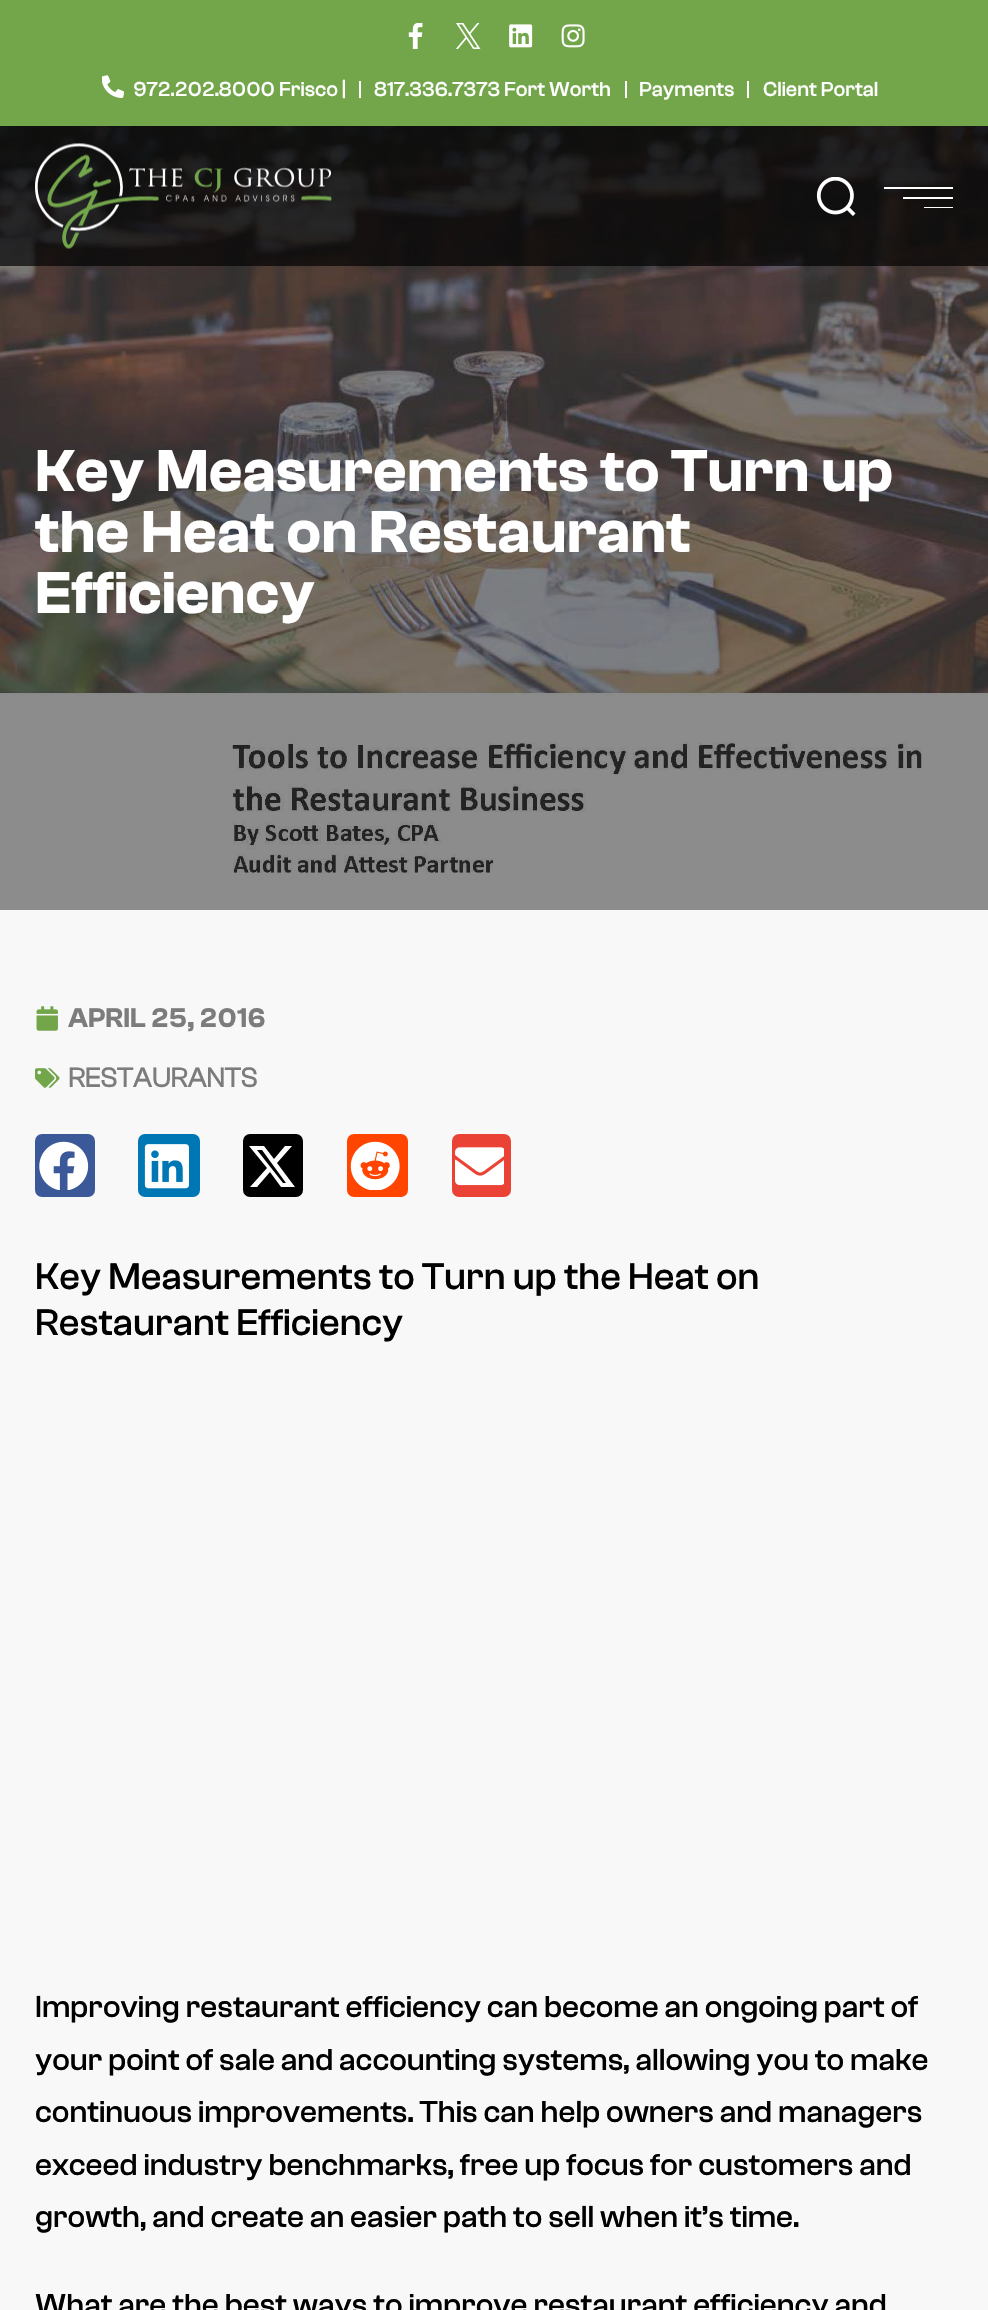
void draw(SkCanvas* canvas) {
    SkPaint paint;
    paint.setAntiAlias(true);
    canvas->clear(0xFF8C8C8C);
    canvas->drawImageRect(SkImages::DeferredFromEncodedData(SkData::MakeFromFileName("img8.png")), SkRect::MakeXYWH(0, 126, 988, 747), SkSamplingOptions());
    {
        const SkColor colors[] = {0xBF000000, 0xB0000000};
        const float stops[] = {0, 1};
        const SkPoint ends[] = {{494, 0}, {494, 266}};
        paint.setShader(SkGradientShader::MakeLinear(ends, colors, stops, 2, SkTileMode::kClamp));
        paint.setAlpha(255);
    }
    canvas->drawRect(SkRect::MakeXYWH(0, 126, 988, 140), paint);
    paint.setShader(nullptr);
    paint.setColor(0xFF73A64B);
    canvas->drawRect(SkRect::MakeXYWH(0, 0, 988, 126), paint);
    canvas->drawImageRect(SkImages::DeferredFromEncodedData(SkData::MakeFromFileName("img1.png")), SkRect::MakeXYWH(408, 23, 15, 26), SkSamplingOptions());
    canvas->drawImageRect(SkImages::DeferredFromEncodedData(SkData::MakeFromFileName("img2.png")), SkRect::MakeXYWH(456, 23, 25, 26), SkSamplingOptions());
    canvas->drawImageRect(SkImages::DeferredFromEncodedData(SkData::MakeFromFileName("img3.png")), SkRect::MakeXYWH(509, 24, 24, 24), SkSamplingOptions());
    canvas->drawImageRect(SkImages::DeferredFromEncodedData(SkData::MakeFromFileName("img4.png")), SkRect::MakeXYWH(561, 24, 24, 24), SkSamplingOptions());
    canvas->drawImageRect(SkImages::DeferredFromEncodedData(SkData::MakeFromFileName("img5.png")), SkRect::MakeXYWH(102, 75, 22, 23), SkSamplingOptions());
    SkFont font1(fontMgr->matchFamilyStyle("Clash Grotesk", SkFontStyle(500, SkFontStyle::kNormal_Width, SkFontStyle::kUpright_Slant)), 21);
    font1.setSubpixel(true);
    paint.setColor(0xFFFFFFFF);
    canvas->drawString("972.202.8000 Frisco |", 133, 96, font1, paint);
    canvas->drawRect(SkRect::MakeXYWH(359, 81, 2, 17), paint);
    canvas->drawString("817.336.7373 Fort Worth", 374, 96, font1, paint);
    canvas->drawRect(SkRect::MakeXYWH(625, 81, 2, 17), paint);
    canvas->drawString("Payments", 639, 96, font1, paint);
    canvas->drawRect(SkRect::MakeXYWH(747, 81, 2, 17), paint);
    canvas->drawString("Client Portal", 763, 96, font1, paint);
    canvas->drawImageRect(SkImages::DeferredFromEncodedData(SkData::MakeFromFileName("img6.png")), SkRect::MakeXYWH(35, 143, 297, 106), SkSamplingOptions());
    canvas->drawImageRect(SkImages::DeferredFromEncodedData(SkData::MakeFromFileName("img7.png")), SkRect::MakeXYWH(816, 177, 40, 39), SkSamplingOptions());
    canvas->drawRect(SkRect::MakeXYWH(884, 187, 69, 2), paint);
    canvas->drawRect(SkRect::MakeXYWH(924, 207, 29, 1), paint);
    canvas->drawRect(SkRect::MakeXYWH(903, 197, 50, 2), paint);
    SkFont font2(fontMgr->matchFamilyStyle("Clash Grotesk", SkFontStyle(600, SkFontStyle::kNormal_Width, SkFontStyle::kUpright_Slant)), 61.25f);
    font2.setSubpixel(true);
    canvas->drawString("Key Measurements to Turn up", 35, 491, font2, paint);
    canvas->drawString("the Heat on Restaurant", 35, 552, font2, paint);
    canvas->drawString("Efficiency", 35, 613, font2, paint);
    paint.setColor(0xFFF8F8F8);
    canvas->drawRect(SkRect::MakeXYWH(0, 910, 988, 1400), paint);
    canvas->drawImageRect(SkImages::DeferredFromEncodedData(SkData::MakeFromFileName("img9.png")), SkRect::MakeXYWH(36, 1006, 22, 25), SkSamplingOptions());
    SkFont font3(fontMgr->matchFamilyStyle("Clash Grotesk", SkFontStyle(600, SkFontStyle::kNormal_Width, SkFontStyle::kUpright_Slant)), 28);
    font3.setSubpixel(true);
    paint.setColor(0xFF7C7C7C);
    canvas->drawString("APRIL 25, 2016", 68, 1027, font3, paint);
    canvas->drawImageRect(SkImages::DeferredFromEncodedData(SkData::MakeFromFileName("img10.png")), SkRect::MakeXYWH(35, 1068, 25, 20), SkSamplingOptions());
    SkFont font4(fontMgr->matchFamilyStyle("Clash Grotesk", SkFontStyle::Bold()), 28);
    font4.setSubpixel(true);
    canvas->drawString("RESTAURANTS", 68, 1087, font4, paint);
    paint.setColor(0xFF3B5998);
    canvas->drawRoundRect(SkRect::MakeXYWH(35, 1134, 60, 63), 7, 7, paint);
    canvas->drawImageRect(SkImages::DeferredFromEncodedData(SkData::MakeFromFileName("img11.png")), SkRect::MakeXYWH(39, 1141, 50, 49), SkSamplingOptions());
    paint.setColor(0xFF0077B5);
    canvas->drawRoundRect(SkRect::MakeXYWH(138, 1134, 62, 63), 7, 7, paint);
    canvas->drawImageRect(SkImages::DeferredFromEncodedData(SkData::MakeFromFileName("img12.png")), SkRect::MakeXYWH(144, 1144, 45, 45), SkSamplingOptions());
    paint.setColor(0xFF000000);
    canvas->drawRoundRect(SkRect::MakeXYWH(243, 1134, 60, 63), 7, 7, paint);
    paint.setColor(0xFFFFFFFF);
    canvas->drawPath(SkPathBuilder().moveTo(285, 1146).lineTo(292, 1146).lineTo(277, 1163).lineTo(295, 1187).lineTo(281, 1187).lineTo(270, 1172).lineTo(257, 1187).lineTo(250, 1187).lineTo(267, 1168).lineTo(249, 1146).lineTo(264, 1146).lineTo(274, 1159).close().moveTo(283, 1183).lineTo(286, 1183).lineTo(262, 1150).lineTo(257, 1150).close().detach(), paint);
    paint.setColor(0xFFFF4500);
    canvas->drawRoundRect(SkRect::MakeXYWH(347, 1134, 61, 63), 7, 7, paint);
    canvas->drawImageRect(SkImages::DeferredFromEncodedData(SkData::MakeFromFileName("img13.png")), SkRect::MakeXYWH(350, 1141, 50, 49), SkSamplingOptions());
    paint.setColor(0xFFEA4335);
    canvas->drawRoundRect(SkRect::MakeXYWH(452, 1134, 59, 63), 7, 7, paint);
    canvas->drawImageRect(SkImages::DeferredFromEncodedData(SkData::MakeFromFileName("img14.png")), SkRect::MakeXYWH(455, 1147, 49, 39), SkSamplingOptions());
    SkFont font5(fontMgr->matchFamilyStyle("Clash Grotesk", SkFontStyle(500, SkFontStyle::kNormal_Width, SkFontStyle::kUpright_Slant)), 38.5f);
    font5.setSubpixel(true);
    paint.setColor(0xFF000000);
    canvas->drawString("Key Measurements to Turn up the Heat on", 35, 1289, font5, paint);
    canvas->drawString("Restaurant Efficiency", 35, 1335, font5, paint);
    SkFont font6(fontMgr->matchFamilyStyle("Clash Grotesk", SkFontStyle(500, SkFontStyle::kNormal_Width, SkFontStyle::kUpright_Slant)), 31.5f);
    font6.setSubpixel(true);
    canvas->drawString("Improving restaurant efficiency can become an ongoing part of", 35, 2017, font6, paint);
    canvas->drawString("your point of sale and accounting systems, allowing you to make", 35, 2070, font6, paint);
    canvas->drawString("continuous improvements. This can help owners and managers", 35, 2122, font6, paint);
    canvas->drawString("exceed industry benchmarks, free up focus for customers and", 35, 2175, font6, paint);
    canvas->drawString("growth, and create an easier path to sell when it’s time.", 35, 2227, font6, paint);
    canvas->drawString("What are the best ways to improve restaurant efficiency and", 35, 2315, font6, paint);
}
